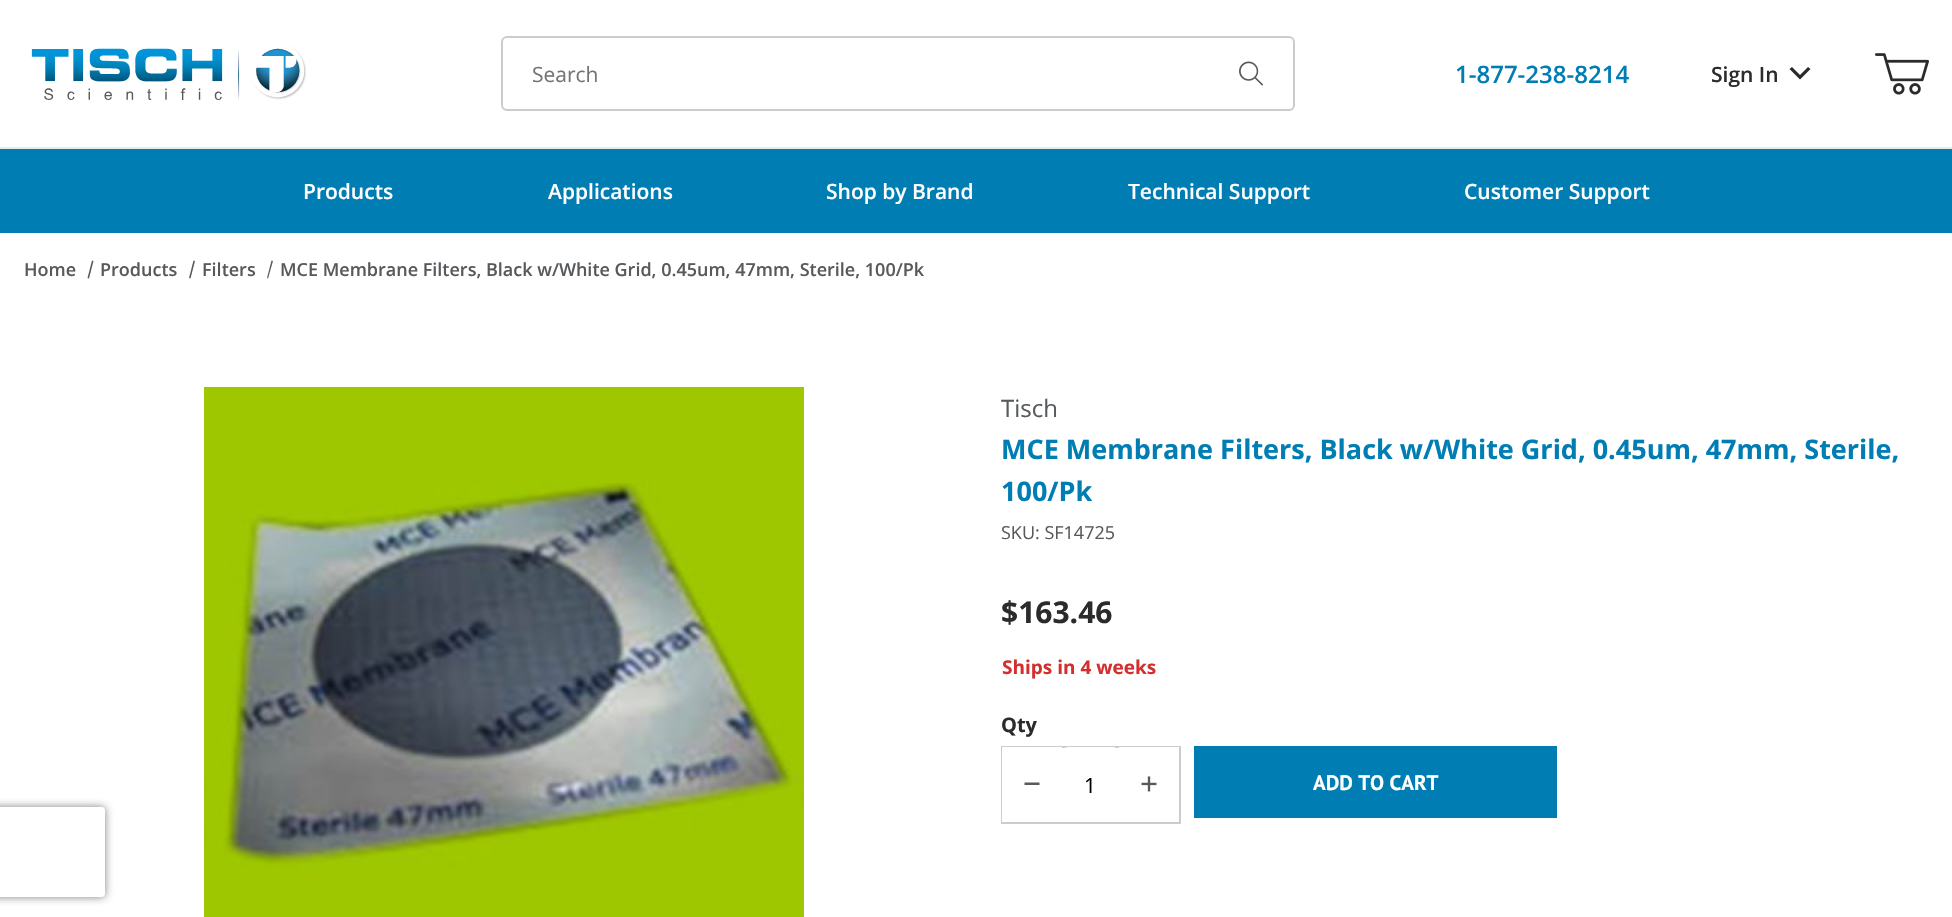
void draw(SkCanvas* canvas) {
    SkPaint paint;
    paint.setAntiAlias(true);
    canvas->clear(0xFFFFFFFF);
    paint.setColor(0xFFEAEAEA);
    canvas->drawRect(SkRect::MakeXYWH(0, 147, 1952, 2), paint);
    canvas->drawImageRect(SkImages::DeferredFromEncodedData(SkData::MakeFromFileName("img1.png")), SkRect::MakeXYWH(31, 46, 275, 54), SkSamplingOptions());
    paint.setStyle(SkPaint::kStroke_Style);
    paint.setStrokeWidth(2);
    paint.setColor(0xFFCCCCCC);
    canvas->drawRoundRect(SkRect::MakeXYWH(502, 37, 792, 73), 5, 5, paint);
    SkFont font1(fontMgr->matchFamilyStyle("Open Sans", SkFontStyle::Normal()), 21);
    font1.setSubpixel(true);
    paint.setStyle(SkPaint::kFill_Style);
    paint.setColor(0xFF757575);
    canvas->drawString("Search", 532, 82, font1, paint);
    canvas->drawImageRect(SkImages::DeferredFromEncodedData(SkData::MakeFromFileName("img2.png")), SkRect::MakeXYWH(1239, 61, 24, 25), SkSamplingOptions());
    SkFont font2(fontMgr->matchFamilyStyle("Open Sans", SkFontStyle(600, SkFontStyle::kNormal_Width, SkFontStyle::kUpright_Slant)), 24);
    font2.setSubpixel(true);
    paint.setColor(0xFF007EB4);
    canvas->drawString("1-877-238-8214", 1455, 83, font2, paint);
    SkFont font3(fontMgr->matchFamilyStyle("Open Sans", SkFontStyle(600, SkFontStyle::kNormal_Width, SkFontStyle::kUpright_Slant)), 21);
    font3.setSubpixel(true);
    paint.setColor(0xFF2B2B2B);
    canvas->drawString("Sign In", 1711, 82, font3, paint);
    canvas->drawPath(SkPathBuilder().moveTo(1792, 67).lineTo(1789.5f, 69).lineTo(1800, 79.5f).lineTo(1810.5f, 69).lineTo(1808, 67).lineTo(1800, 75).close().detach(), paint);
    canvas->drawImageRect(SkImages::DeferredFromEncodedData(SkData::MakeFromFileName("img3.png")), SkRect::MakeXYWH(1875, 53, 54, 42), SkSamplingOptions());
    paint.setColor(0xFF007EB4);
    canvas->drawRect(SkRect::MakeXYWH(0, 149, 1952, 84), paint);
    paint.setColor(0xFFFFFFFF);
    canvas->drawString("Products", 303, 199, font3, paint);
    canvas->drawString("Applications", 548, 199, font3, paint);
    canvas->drawString("Shop by Brand", 826, 199, font3, paint);
    canvas->drawString("Technical Support", 1128, 199, font3, paint);
    canvas->drawString("Customer Support", 1464, 199, font3, paint);
    SkFont font4(fontMgr->matchFamilyStyle("Open Sans", SkFontStyle(600, SkFontStyle::kNormal_Width, SkFontStyle::kUpright_Slant)), 18);
    font4.setSubpixel(true);
    paint.setColor(0xFF575A5D);
    canvas->drawString("Home", 24, 276, font4, paint);
    canvas->drawPath(SkPathBuilder().moveTo(92, 260.5f).lineTo(93.5f, 261).lineTo(89, 278.5f).lineTo(87.5f, 278).close().detach(), paint);
    canvas->drawString("Products", 100, 276, font4, paint);
    canvas->drawPath(SkPathBuilder().moveTo(193.5f, 260.5f).lineTo(195, 261).lineTo(190.5f, 278.5f).lineTo(189, 278).close().detach(), paint);
    canvas->drawString("Filters", 202, 276, font4, paint);
    canvas->drawPath(SkPathBuilder().moveTo(271.5f, 260.5f).lineTo(273, 261).lineTo(268, 278.5f).lineTo(267, 278).close().detach(), paint);
    canvas->drawString("MCE Membrane Filters, Black w/White Grid, 0.45um, 47mm, Sterile, 100/Pk", 280, 276, font4, paint);
    canvas->drawImageRect(SkImages::DeferredFromEncodedData(SkData::MakeFromFileName("img4.png")), SkRect::MakeXYWH(204, 387, 600, 530), SkSamplingOptions());
    SkFont font5(fontMgr->matchFamilyStyle("Open Sans", SkFontStyle::Normal()), 24);
    font5.setSubpixel(true);
    canvas->drawString("Tisch", 1001, 417, font5, paint);
    SkFont font6(fontMgr->matchFamilyStyle("Open Sans", SkFontStyle::Bold()), 27);
    font6.setSubpixel(true);
    paint.setColor(0xFF007EB4);
    canvas->drawString("MCE Membrane Filters, Black w/White Grid, 0.45um, 47mm, Sterile,", 1001, 459, font6, paint);
    canvas->drawString("100/Pk", 1001, 501, font6, paint);
    SkFont font7(fontMgr->matchFamilyStyle("Open Sans", SkFontStyle::Normal()), 18);
    font7.setSubpixel(true);
    paint.setColor(0xFF575A5D);
    canvas->drawString("SKU: SF14725", 1001, 539, font7, paint);
    SkFont font8(fontMgr->matchFamilyStyle("Open Sans", SkFontStyle::Bold()), 30);
    font8.setSubpixel(true);
    paint.setColor(0xFF2B2B2B);
    canvas->drawString("$163.46", 1001, 623, font8, paint);
    SkFont font9(fontMgr->matchFamilyStyle("Open Sans", SkFontStyle::Bold()), 19);
    font9.setSubpixel(true);
    paint.setColor(0xFFD32F2F);
    canvas->drawString("Ships in 4 weeks", 1002, 674, font9, paint);
    SkFont font10(fontMgr->matchFamilyStyle("Open Sans", SkFontStyle::Bold()), 20);
    font10.setSubpixel(true);
    paint.setColor(0xFF2B2B2B);
    canvas->drawString("Qty", 1001, 732, font10, paint);
    paint.setStyle(SkPaint::kStroke_Style);
    paint.setColor(0xFFCCCCCC);
    canvas->drawRect(SkRect::MakeXYWH(1002, 747, 178, 76), paint);
    paint.setStyle(SkPaint::kFill_Style);
    paint.setColor(0xFFFFFFFF);
    canvas->drawRect(SkRect::MakeXYWH(1002, 747, 60, 75), paint);
    paint.setColor(0xFF575A5D);
    canvas->drawPath(SkPathBuilder().moveTo(1031.5f, 782.5f).lineTo(1024.5f, 782.5f).lineTo(1024.5f, 785).lineTo(1039.5f, 785).lineTo(1039.5f, 782.5f).close().detach(), paint);
    paint.setColor(0xFFFFFFFF);
    canvas->drawRoundRect(SkRect::MakeXYWH(1062, 747, 57, 75), 6, 6, paint);
    paint.setColor(0xFF000000);
    canvas->drawString("1", 1084, 793, font1, paint);
    paint.setColor(0xFFFFFFFF);
    canvas->drawRect(SkRect::MakeXYWH(1119, 747, 60, 1), paint);
    canvas->drawImageRect(SkImages::DeferredFromEncodedData(SkData::MakeFromFileName("img5.png")), SkRect::MakeXYWH(1141, 776, 16, 16), SkSamplingOptions());
    paint.setColor(0xFF007EB4);
    canvas->drawRect(SkRect::MakeXYWH(1194, 746, 363, 72), paint);
    SkFont font11(fontMgr->matchFamilyStyle("PT Sans", SkFontStyle::Bold()), 21);
    font11.setSubpixel(true);
    paint.setColor(0xFFFFFFFF);
    canvas->drawString("ADD TO CART", 1313, 790, font11, paint);
    canvas->save();
    canvas->clipPath(SkPathBuilder(SkPathFillType::kEvenOdd).moveTo(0, 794).lineTo(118, 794).lineTo(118, 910).lineTo(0, 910).close().moveTo(-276, 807).lineTo(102, 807).cubicTo(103.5f, 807, 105, 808.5f, 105, 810).lineTo(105, 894).cubicTo(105, 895.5f, 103.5f, 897, 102, 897).lineTo(-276, 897).cubicTo(-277.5f, 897, -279, 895.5f, -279, 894).lineTo(-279, 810).cubicTo(-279, 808.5f, -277.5f, 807, -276, 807).close().detach(), true);
    paint.setColor(0xFF808080);
    paint.setMaskFilter(SkMaskFilter::MakeBlur(kNormal_SkBlurStyle, 4));
    canvas->drawRoundRect(SkRect::MakeXYWH(-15, 807, 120, 90), 3, 3, paint);
    paint.setMaskFilter(nullptr);
    canvas->restore();
}
